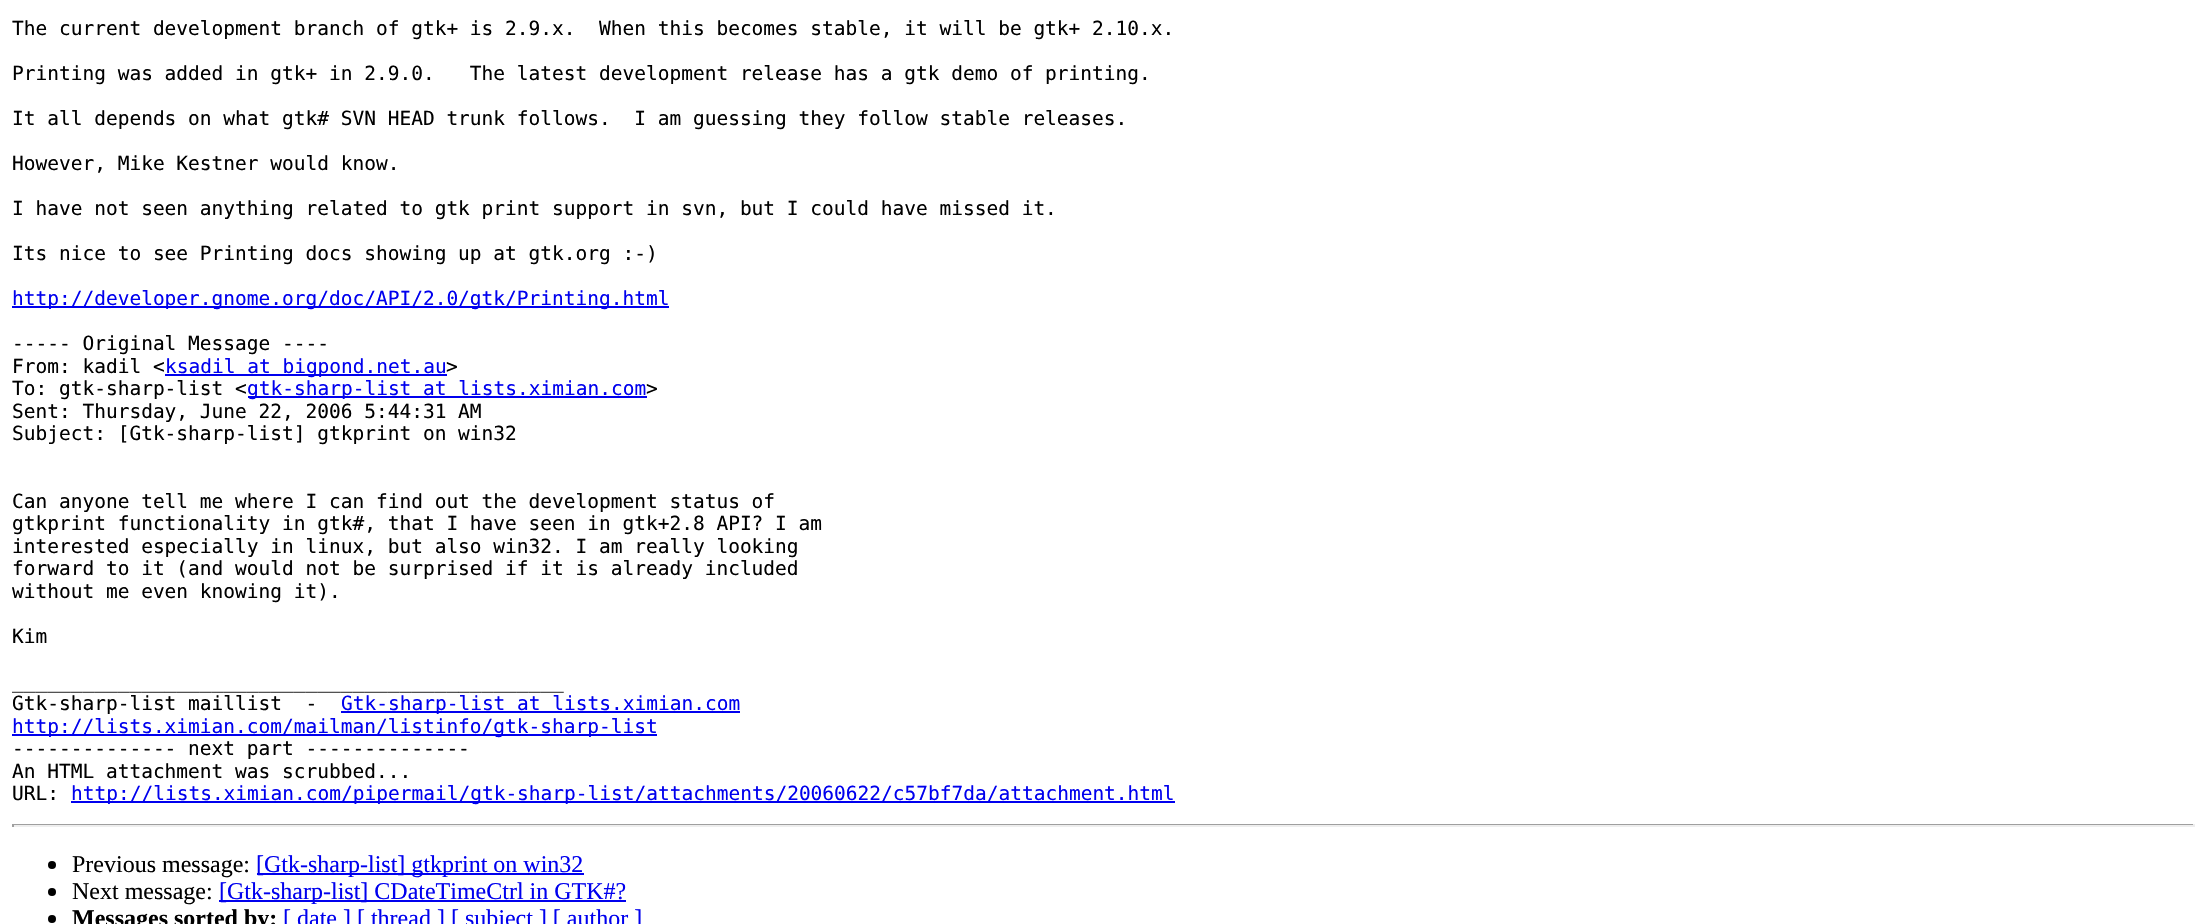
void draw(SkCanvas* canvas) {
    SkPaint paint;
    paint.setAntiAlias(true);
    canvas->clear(0xFFFFFFFF);
    SkFont font1(fontMgr->matchFamilyStyle("DejaVu Sans Mono", SkFontStyle::Normal()), 19.5f);
    font1.setSubpixel(true);
    paint.setColor(0xFF000000);
    canvas->drawString("The current development branch of gtk+ is 2.9.x.  When this becomes stable, it will be gtk+ 2.10.x.", 12, 35, font1, paint);
    canvas->drawString("Printing was added in gtk+ in 2.9.0.   The latest development release has a gtk demo of printing.", 12, 80, font1, paint);
    canvas->drawString("It all depends on what gtk# SVN HEAD trunk follows.  I am guessing they follow stable releases.", 12, 125, font1, paint);
    canvas->drawString("However, Mike Kestner would know.", 12, 170, font1, paint);
    canvas->drawString("I have not seen anything related to gtk print support in svn, but I could have missed it.", 12, 215, font1, paint);
    canvas->drawString("Its nice to see Printing docs showing up at gtk.org :-)", 12, 260, font1, paint);
    paint.setColor(0xFF0000EE);
    canvas->drawRect(SkRect::MakeXYWH(12, 306, 657, 2), paint);
    canvas->drawString("http://developer.gnome.org/doc/API/2.0/gtk/Printing.html", 12, 305, font1, paint);
    paint.setColor(0xFF000000);
    canvas->drawString("----- Original Message ----", 12, 350, font1, paint);
    canvas->drawString("From: kadil <", 12, 373, font1, paint);
    paint.setColor(0xFF0000EE);
    canvas->drawRect(SkRect::MakeXYWH(165, 374, 282, 2), paint);
    canvas->drawString("ksadil at bigpond.net.au", 165, 373, font1, paint);
    paint.setColor(0xFF000000);
    canvas->drawString(">", 446, 373, font1, paint);
    canvas->drawString("To: gtk-sharp-list <", 12, 395, font1, paint);
    paint.setColor(0xFF0000EE);
    canvas->drawRect(SkRect::MakeXYWH(248, 396, 399, 2), paint);
    canvas->drawString("gtk-sharp-list at lists.ximian.com", 247, 395, font1, paint);
    paint.setColor(0xFF000000);
    canvas->drawString(">", 646, 395, font1, paint);
    canvas->drawString("Sent: Thursday, June 22, 2006 5:44:31 AM", 12, 418, font1, paint);
    canvas->drawString("Subject: [Gtk-sharp-list] gtkprint on win32", 12, 440, font1, paint);
    canvas->drawString("Can anyone tell me where I can find out the development status of", 12, 508, font1, paint);
    canvas->drawString("gtkprint functionality in gtk#, that I have seen in gtk+2.8 API? I am", 12, 530, font1, paint);
    canvas->drawString("interested especially in linux, but also win32. I am really looking", 12, 553, font1, paint);
    canvas->drawString("forward to it (and would not be surprised if it is already included", 12, 575, font1, paint);
    canvas->drawString("without me even knowing it).", 12, 598, font1, paint);
    canvas->drawString("Kim", 12, 643, font1, paint);
    canvas->drawString("_______________________________________________", 12, 688, font1, paint);
    canvas->drawString("Gtk-sharp-list maillist  -", 12, 710, font1, paint);
    paint.setColor(0xFF0000EE);
    canvas->drawRect(SkRect::MakeXYWH(341, 711, 399, 2), paint);
    canvas->drawString("Gtk-sharp-list at lists.ximian.com", 341, 710, font1, paint);
    canvas->drawRect(SkRect::MakeXYWH(12, 734, 645, 2), paint);
    canvas->drawString("http://lists.ximian.com/mailman/listinfo/gtk-sharp-list", 12, 733, font1, paint);
    paint.setColor(0xFF000000);
    canvas->drawString("-------------- next part --------------", 12, 755, font1, paint);
    canvas->drawString("An HTML attachment was scrubbed...", 12, 778, font1, paint);
    canvas->drawString("URL:", 12, 800, font1, paint);
    paint.setColor(0xFF0000EE);
    canvas->drawRect(SkRect::MakeXYWH(71, 801, 1104, 2), paint);
    canvas->drawString("http://lists.ximian.com/pipermail/gtk-sharp-list/attachments/20060622/c57bf7da/attachment.html", 71, 800, font1, paint);
    paint.setColor(0xFF9F9F9F);
    canvas->drawRect(SkRect::MakeXYWH(12, 824, 2183, 1), paint);
    paint.setColor(0xFFEEEEEE);
    canvas->drawRect(SkRect::MakeXYWH(2193, 824, 2, 3), paint);
    canvas->drawRect(SkRect::MakeXYWH(12, 825, 2183, 2), paint);
    paint.setColor(0xFF9F9F9F);
    canvas->drawRect(SkRect::MakeXYWH(12, 824, 2, 3), paint);
    paint.setColor(0xFF000000);
    canvas->drawCircle(52, 865, 4, paint);
    SkFont font2(fontMgr->matchFamilyStyle("Liberation Serif", SkFontStyle::Normal()), 24);
    font2.setSubpixel(true);
    canvas->drawString("Previous message:", 72, 872, font2, paint);
    paint.setColor(0xFF0000EE);
    canvas->drawRect(SkRect::MakeXYWH(257, 873, 327, 2), paint);
    canvas->drawString("[Gtk-sharp-list] gtkprint on win32", 256, 872, font2, paint);
    paint.setColor(0xFF000000);
    canvas->drawCircle(52, 892, 4, paint);
    canvas->drawString("Next message:", 72, 899, font2, paint);
    paint.setColor(0xFF0000EE);
    canvas->drawRect(SkRect::MakeXYWH(219, 900, 407, 2), paint);
    canvas->drawString("[Gtk-sharp-list] CDateTimeCtrl in GTK#?", 219, 899, font2, paint);
    paint.setColor(0xFF000000);
    canvas->drawCircle(52, 919, 4, paint);
    SkFont font3(fontMgr->matchFamilyStyle("Liberation Serif", SkFontStyle::Bold()), 24);
    font3.setSubpixel(true);
    canvas->drawString("Messages sorted by:", 72, 926, font3, paint);
    paint.setColor(0xFF0000EE);
    canvas->drawString("[ date ] [ thread ] [ subject ] [ author ]", 283, 926, font2, paint);
}
